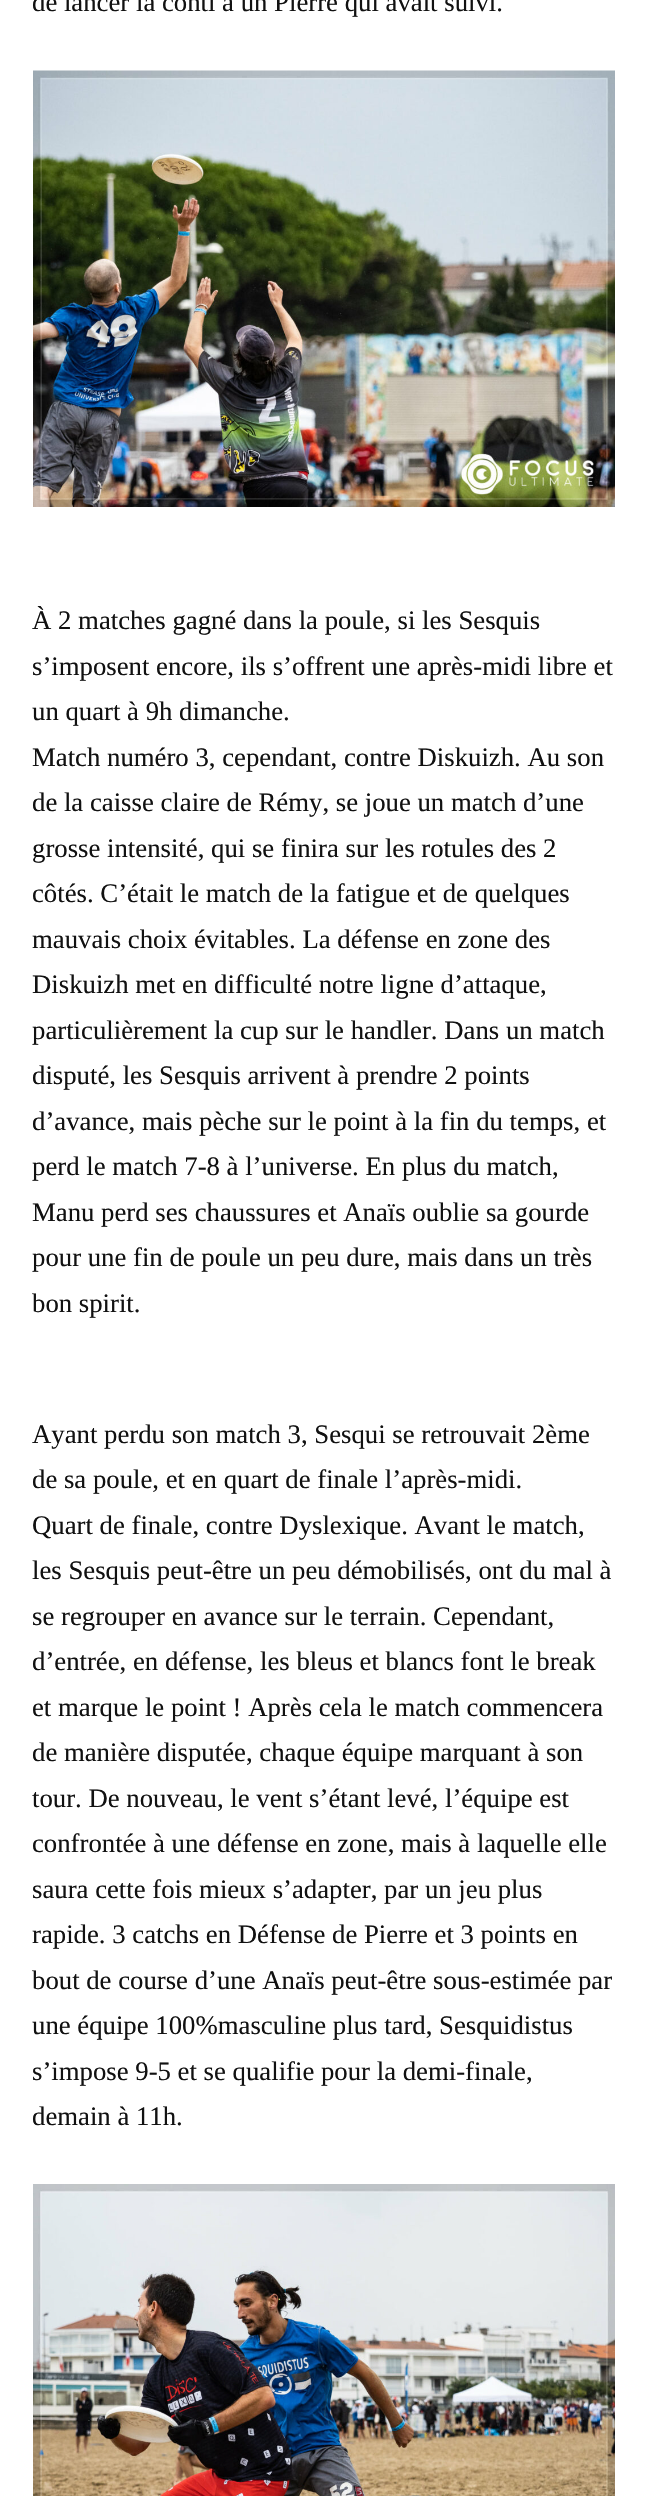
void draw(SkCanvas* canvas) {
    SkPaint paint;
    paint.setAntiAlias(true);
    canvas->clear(0xFFFFFFFF);
    SkFont font1(fontMgr->matchFamilyStyle("Liberation Serif", SkFontStyle::Normal()), 26.75f);
    font1.setSubpixel(true);
    paint.setColor(0xFF111111);
    canvas->drawString("de lancer la conti à un Pierre qui avait suivi.", 32, 11, font1, paint);
    canvas->drawImageRect(SkImages::DeferredFromEncodedData(SkData::MakeFromFileName("img1.png")), SkRect::MakeXYWH(33, 70, 582, 437), SkSamplingOptions());
    canvas->drawString("À 2 matches gagné dans la poule, si les Sesquis", 32, 629, font1, paint);
    canvas->drawString("s’imposent encore, ils s’offrent une après-midi libre et", 32, 675, font1, paint);
    canvas->drawString("un quart à 9h dimanche.", 32, 720, font1, paint);
    canvas->drawString("Match numéro 3, cependant, contre Diskuizh. Au son", 32, 766, font1, paint);
    canvas->drawString("de la caisse claire de Rémy, se joue un match d’une", 32, 811, font1, paint);
    canvas->drawString("grosse intensité, qui se finira sur les rotules des 2", 32, 857, font1, paint);
    canvas->drawString("côtés. C’était le match de la fatigue et de quelques", 32, 902, font1, paint);
    canvas->drawString("mauvais choix évitables. La défense en zone des", 32, 948, font1, paint);
    canvas->drawString("Diskuizh met en difficulté notre ligne d’attaque,", 32, 993, font1, paint);
    canvas->drawString("particulièrement la cup sur le handler. Dans un match", 32, 1039, font1, paint);
    canvas->drawString("disputé, les Sesquis arrivent à prendre 2 points", 32, 1084, font1, paint);
    canvas->drawString("d’avance, mais pèche sur le point à la fin du temps, et", 32, 1130, font1, paint);
    canvas->drawString("perd le match 7-8 à l’universe. En plus du match,", 32, 1175, font1, paint);
    canvas->drawString("Manu perd ses chaussures et Anaïs oublie sa gourde", 32, 1221, font1, paint);
    canvas->drawString("pour une fin de poule un peu dure, mais dans un très", 32, 1266, font1, paint);
    canvas->drawString("bon spirit.", 32, 1312, font1, paint);
    canvas->drawString("Ayant perdu son match 3, Sesqui se retrouvait 2ème", 32, 1443, font1, paint);
    canvas->drawString("de sa poule, et en quart de finale l’après-midi.", 32, 1488, font1, paint);
    canvas->drawString("Quart de finale, contre Dyslexique. Avant le match,", 32, 1534, font1, paint);
    canvas->drawString("les Sesquis peut-être un peu démobilisés, ont du mal à", 32, 1579, font1, paint);
    canvas->drawString("se regrouper en avance sur le terrain. Cependant,", 32, 1625, font1, paint);
    canvas->drawString("d’entrée, en défense, les bleus et blancs font le break", 32, 1670, font1, paint);
    canvas->drawString("et marque le point ! Après cela le match commencera", 32, 1716, font1, paint);
    canvas->drawString("de manière disputée, chaque équipe marquant à son", 32, 1761, font1, paint);
    canvas->drawString("tour. De nouveau, le vent s’étant levé, l’équipe est", 32, 1807, font1, paint);
    canvas->drawString("confrontée à une défense en zone, mais à laquelle elle", 32, 1852, font1, paint);
    canvas->drawString("saura cette fois mieux s’adapter, par un jeu plus", 32, 1898, font1, paint);
    canvas->drawString("rapide. 3 catchs en Défense de Pierre et 3 points en", 32, 1943, font1, paint);
    canvas->drawString("bout de course d’une Anaïs peut-être sous-estimée par", 32, 1989, font1, paint);
    canvas->drawString("une équipe 100%masculine plus tard, Sesquidistus", 32, 2034, font1, paint);
    canvas->drawString("s’impose 9-5 et se qualifie pour la demi-finale,", 32, 2080, font1, paint);
    canvas->drawString("demain à 11h.", 32, 2125, font1, paint);
    canvas->drawImageRect(SkImages::DeferredFromEncodedData(SkData::MakeFromFileName("img2.png")), SkRect::MakeXYWH(33, 2184, 582, 312), SkSamplingOptions());
}
